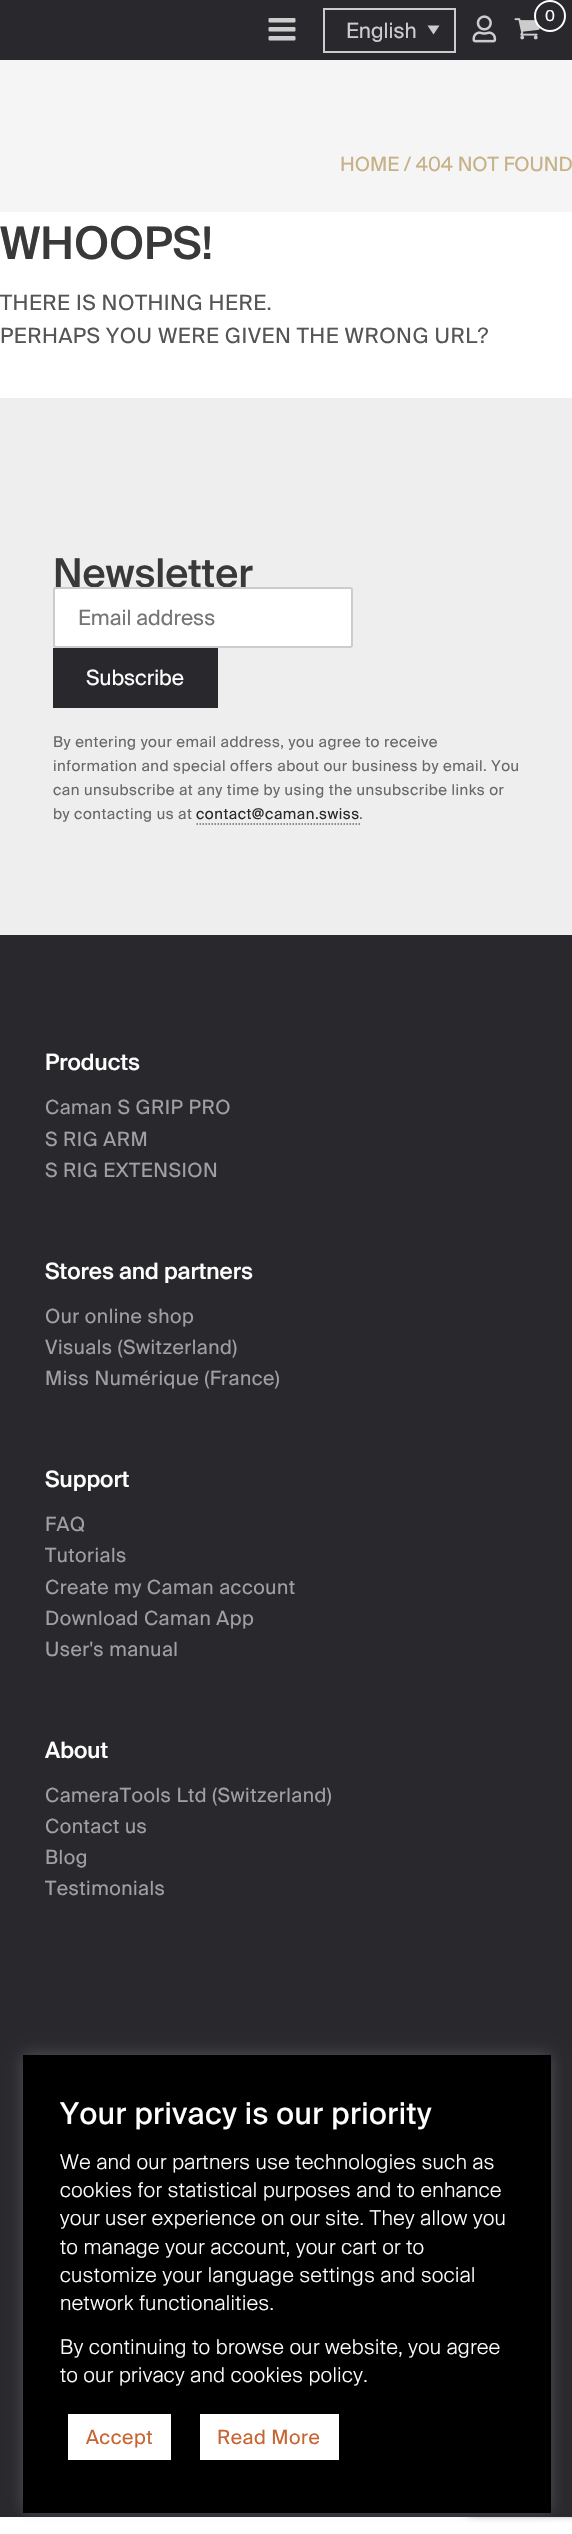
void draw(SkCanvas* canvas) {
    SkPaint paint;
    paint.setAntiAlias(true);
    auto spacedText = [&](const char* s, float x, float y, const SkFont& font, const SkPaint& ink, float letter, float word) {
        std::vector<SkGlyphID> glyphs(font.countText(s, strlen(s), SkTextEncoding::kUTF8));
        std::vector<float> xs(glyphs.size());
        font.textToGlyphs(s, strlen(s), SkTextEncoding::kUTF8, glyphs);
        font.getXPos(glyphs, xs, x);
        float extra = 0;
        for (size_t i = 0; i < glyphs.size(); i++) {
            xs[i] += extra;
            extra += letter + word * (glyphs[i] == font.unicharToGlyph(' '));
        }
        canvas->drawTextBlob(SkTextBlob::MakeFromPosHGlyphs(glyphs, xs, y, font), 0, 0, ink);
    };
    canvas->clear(0xFFFFFFFF);
    paint.setColor(0xFF28282D);
    canvas->drawRect(SkRect::MakeXYWH(0, 0, 572, 60), paint);
    canvas->drawImageRect(SkImages::DeferredFromEncodedData(SkData::MakeFromFileName("img1.png")), SkRect::MakeXYWH(268, 18, 28, 23), SkSamplingOptions());
    paint.setStyle(SkPaint::kStroke_Style);
    paint.setStrokeWidth(2);
    paint.setColor(0xFFCCCCCC);
    canvas->drawRect(SkRect::MakeXYWH(324, 9, 131, 43), paint);
    SkFont font1(fontMgr->matchFamilyStyle("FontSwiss", SkFontStyle::Normal()), 21);
    font1.setSubpixel(true);
    paint.setStyle(SkPaint::kFill_Style);
    canvas->drawString("English", 346, 38, font1, paint);
    canvas->drawPath(SkPathBuilder().moveTo(427.5f, 25.5f).lineTo(439.5f, 25.5f).lineTo(433.5f, 34.5f).close().detach(), paint);
    canvas->drawImageRect(SkImages::DeferredFromEncodedData(SkData::MakeFromFileName("img2.png")), SkRect::MakeXYWH(472, 15, 25, 28), SkSamplingOptions());
    canvas->drawImageRect(SkImages::DeferredFromEncodedData(SkData::MakeFromFileName("img3.png")), SkRect::MakeXYWH(514, 18, 26, 22), SkSamplingOptions());
    paint.setColor(0xFF28282D);
    canvas->drawCircle(550, 16, 15, paint);
    paint.setStyle(SkPaint::kStroke_Style);
    paint.setColor(0xFFFFFFFF);
    canvas->drawCircle(550, 16, 15, paint);
    SkFont font2(fontMgr->matchFamilyStyle("FontSwiss", SkFontStyle::Normal()), 15);
    font2.setSubpixel(true);
    paint.setStyle(SkPaint::kFill_Style);
    canvas->drawString("0", 545, 21, font2, paint);
    paint.setColor(0xFFF5F5F5);
    canvas->drawRect(SkRect::MakeXYWH(0, 60, 572, 152), paint);
    SkFont font3(fontMgr->matchFamilyStyle("FontSwiss", SkFontStyle::Normal()), 19.5f);
    font3.setSubpixel(true);
    paint.setColor(0xFFC7B187);
    canvas->drawString("HOME / 404 NOT FOUND", 340, 171, font3, paint);
    SkFont font4(fontMgr->matchFamilyStyle("FontSwiss", SkFontStyle(500, SkFontStyle::kNormal_Width, SkFontStyle::kUpright_Slant)), 45);
    font4.setSubpixel(true);
    paint.setColor(0xFF393939);
    canvas->drawString("WHOOPS!", 0, 259, font4, paint);
    paint.setColor(0xFF555555);
    spacedText("THERE IS NOTHING HERE.", 0, 310, font1, paint, 0.5f, 0);
    spacedText("PERHAPS YOU WERE GIVEN THE WRONG URL?", 0, 343, font1, paint, 0.5f, 0);
    paint.setColor(0xFFEEEEEE);
    canvas->drawRect(SkRect::MakeXYWH(0, 398, 572, 537), paint);
    SkFont font5(fontMgr->matchFamilyStyle("FontSwiss", SkFontStyle(500, SkFontStyle::kNormal_Width, SkFontStyle::kUpright_Slant)), 39.5f);
    font5.setSubpixel(true);
    paint.setColor(0xFF393939);
    canvas->drawString("Newsletter", 53, 587, font5, paint);
    paint.setColor(0xFFFFFFFF);
    canvas->drawRoundRect(SkRect::MakeXYWH(54, 588, 298, 59), 2, 2, paint);
    paint.setStyle(SkPaint::kStroke_Style);
    paint.setColor(0xFFCCCCCC);
    canvas->drawRoundRect(SkRect::MakeXYWH(54, 588, 298, 59), 2, 2, paint);
    paint.setStyle(SkPaint::kFill_Style);
    paint.setColor(0xFF757575);
    canvas->drawString("Email address", 78, 625, font1, paint);
    paint.setColor(0xFF28282D);
    canvas->drawRect(SkRect::MakeXYWH(53, 648, 165, 60), paint);
    paint.setColor(0xFFFFFFFF);
    canvas->drawString("Subscribe", 86, 685, font1, paint);
    paint.setColor(0xFF696969);
    spacedText("By entering your email address, you agree to receive", 53, 747, font2, paint, 0.5f, 0);
    spacedText("information and special offers about our business by email. You", 53, 771, font2, paint, 0.5f, 0);
    spacedText("can unsubscribe at any time by using the unsubscribe links or", 53, 795, font2, paint, 0.5f, 0);
    spacedText("by contacting us at", 53, 819, font2, paint, 0.5f, 0);
    paint.setColor(0xFF28282D);
    spacedText("contact@caman.swiss", 196, 819, font2, paint, 0.5f, 0);
    paint.setStyle(SkPaint::kStroke_Style);
    paint.setStrokeWidth(1.5f);
    paint.setColor(0xFF696969);
    paint.setPathEffect(SkDashPathEffect::Make({{1.5f, 1.5f}}, 0));
    canvas->drawPath(SkPathBuilder().moveTo(196.5f, 824).lineTo(360, 824).detach(), paint);
    paint.setPathEffect(nullptr);
    paint.setStyle(SkPaint::kFill_Style);
    spacedText(".", 359, 819, font2, paint, 0.5f, 0);
    paint.setColor(0xFF808080);
    paint.setMaskFilter(SkMaskFilter::MakeBlur(kNormal_SkBlurStyle, 4));
    canvas->drawRoundRect(SkRect::MakeXYWH(468, 2424, 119, 90), 3, 3, paint);
    paint.setMaskFilter(nullptr);
    paint.setColor(0xFF28282D);
    canvas->drawRect(SkRect::MakeXYWH(0, 935, 572, 1582), paint);
    SkFont font6(fontMgr->matchFamilyStyle("FontSwiss", SkFontStyle(500, SkFontStyle::kNormal_Width, SkFontStyle::kUpright_Slant)), 22.5f);
    font6.setSubpixel(true);
    paint.setColor(0xFFFFFFFF);
    canvas->drawString("Products", 45, 1070, font6, paint);
    paint.setColor(0xFFA0A0A0);
    spacedText("Caman S GRIP PRO", 45, 1114, font3, paint, 0.5f, 0);
    spacedText("S RIG ARM", 45, 1146, font3, paint, 0.5f, 0);
    spacedText("S RIG EXTENSION", 45, 1177, font3, paint, 0.5f, 0);
    paint.setColor(0xFFFFFFFF);
    canvas->drawString("Stores and partners", 45, 1279, font6, paint);
    paint.setColor(0xFFA0A0A0);
    spacedText("Our online shop", 45, 1323, font3, paint, 0.5f, 0);
    spacedText("Visuals (Switzerland)", 45, 1354, font3, paint, 0.5f, 0);
    spacedText("Miss Numérique (France)", 45, 1385, font3, paint, 0.5f, 0);
    paint.setColor(0xFFFFFFFF);
    canvas->drawString("Support", 45, 1487, font6, paint);
    paint.setColor(0xFFA0A0A0);
    spacedText("FAQ", 45, 1531, font3, paint, 0.5f, 0);
    spacedText("Tutorials", 45, 1562, font3, paint, 0.5f, 0);
    spacedText("Create my Caman account", 45, 1594, font3, paint, 0.5f, 0);
    spacedText("Download Caman App", 45, 1625, font3, paint, 0.5f, 0);
    spacedText("User's manual", 45, 1656, font3, paint, 0.5f, 0);
    paint.setColor(0xFFFFFFFF);
    canvas->drawString("About", 45, 1758, font6, paint);
    paint.setColor(0xFFA0A0A0);
    spacedText("CameraTools Ltd (Switzerland)", 45, 1802, font3, paint, 0.5f, 0);
    spacedText("Contact us", 45, 1833, font3, paint, 0.5f, 0);
    spacedText("Blog", 45, 1864, font3, paint, 0.5f, 0);
    spacedText("Testimonials", 45, 1895, font3, paint, 0.5f, 0);
    paint.setColor(0x4DACABAB);
    paint.setMaskFilter(SkMaskFilter::MakeBlur(kNormal_SkBlurStyle, 7.5f));
    canvas->drawRect(SkRect::MakeXYWH(23, 2054, 528, 457), paint);
    paint.setMaskFilter(nullptr);
    paint.setColor(0xFF000000);
    canvas->drawRect(SkRect::MakeXYWH(23, 2055, 528, 458), paint);
    SkFont font7(fontMgr->matchFamilyStyle("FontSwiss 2", SkFontStyle::Normal()), 30);
    font7.setSubpixel(true);
    paint.setColor(0xFFFFFFFF);
    spacedText("Your privacy is our priority", 60, 2124, font7, paint, 0.5f, 0);
    SkFont font8(fontMgr->matchFamilyStyle("FontSwiss", SkFontStyle(300, SkFontStyle::kNormal_Width, SkFontStyle::kUpright_Slant)), 20.25f);
    font8.setSubpixel(true);
    spacedText("We and our partners use technologies such as", 60, 2169, font8, paint, 0.5f, 0);
    spacedText("cookies for statistical purposes and to enhance", 60, 2197, font8, paint, 0.5f, 0);
    spacedText("your user experience on our site. They allow you", 60, 2225, font8, paint, 0.5f, 0);
    spacedText("to manage your account, your cart or to", 60, 2254, font8, paint, 0.5f, 0);
    spacedText("customize your language settings and social", 60, 2282, font8, paint, 0.5f, 0);
    spacedText("network functionalities.", 60, 2310, font8, paint, 0.5f, 0);
    spacedText("By continuing to browse our website, you agree", 60, 2354, font8, paint, 0.5f, 0);
    spacedText("to our privacy and cookies policy.", 60, 2382, font8, paint, 0.5f, 0);
    canvas->drawRect(SkRect::MakeXYWH(68, 2414, 103, 46), paint);
    paint.setColor(0xFFC76533);
    spacedText("Accept", 86, 2444, font3, paint, 0.5f, 0);
    paint.setColor(0xFFFFFFFF);
    canvas->drawRect(SkRect::MakeXYWH(200, 2414, 139, 46), paint);
    paint.setColor(0xFFC76533);
    spacedText("Read More", 217, 2444, font3, paint, 0.5f, 0);
}
